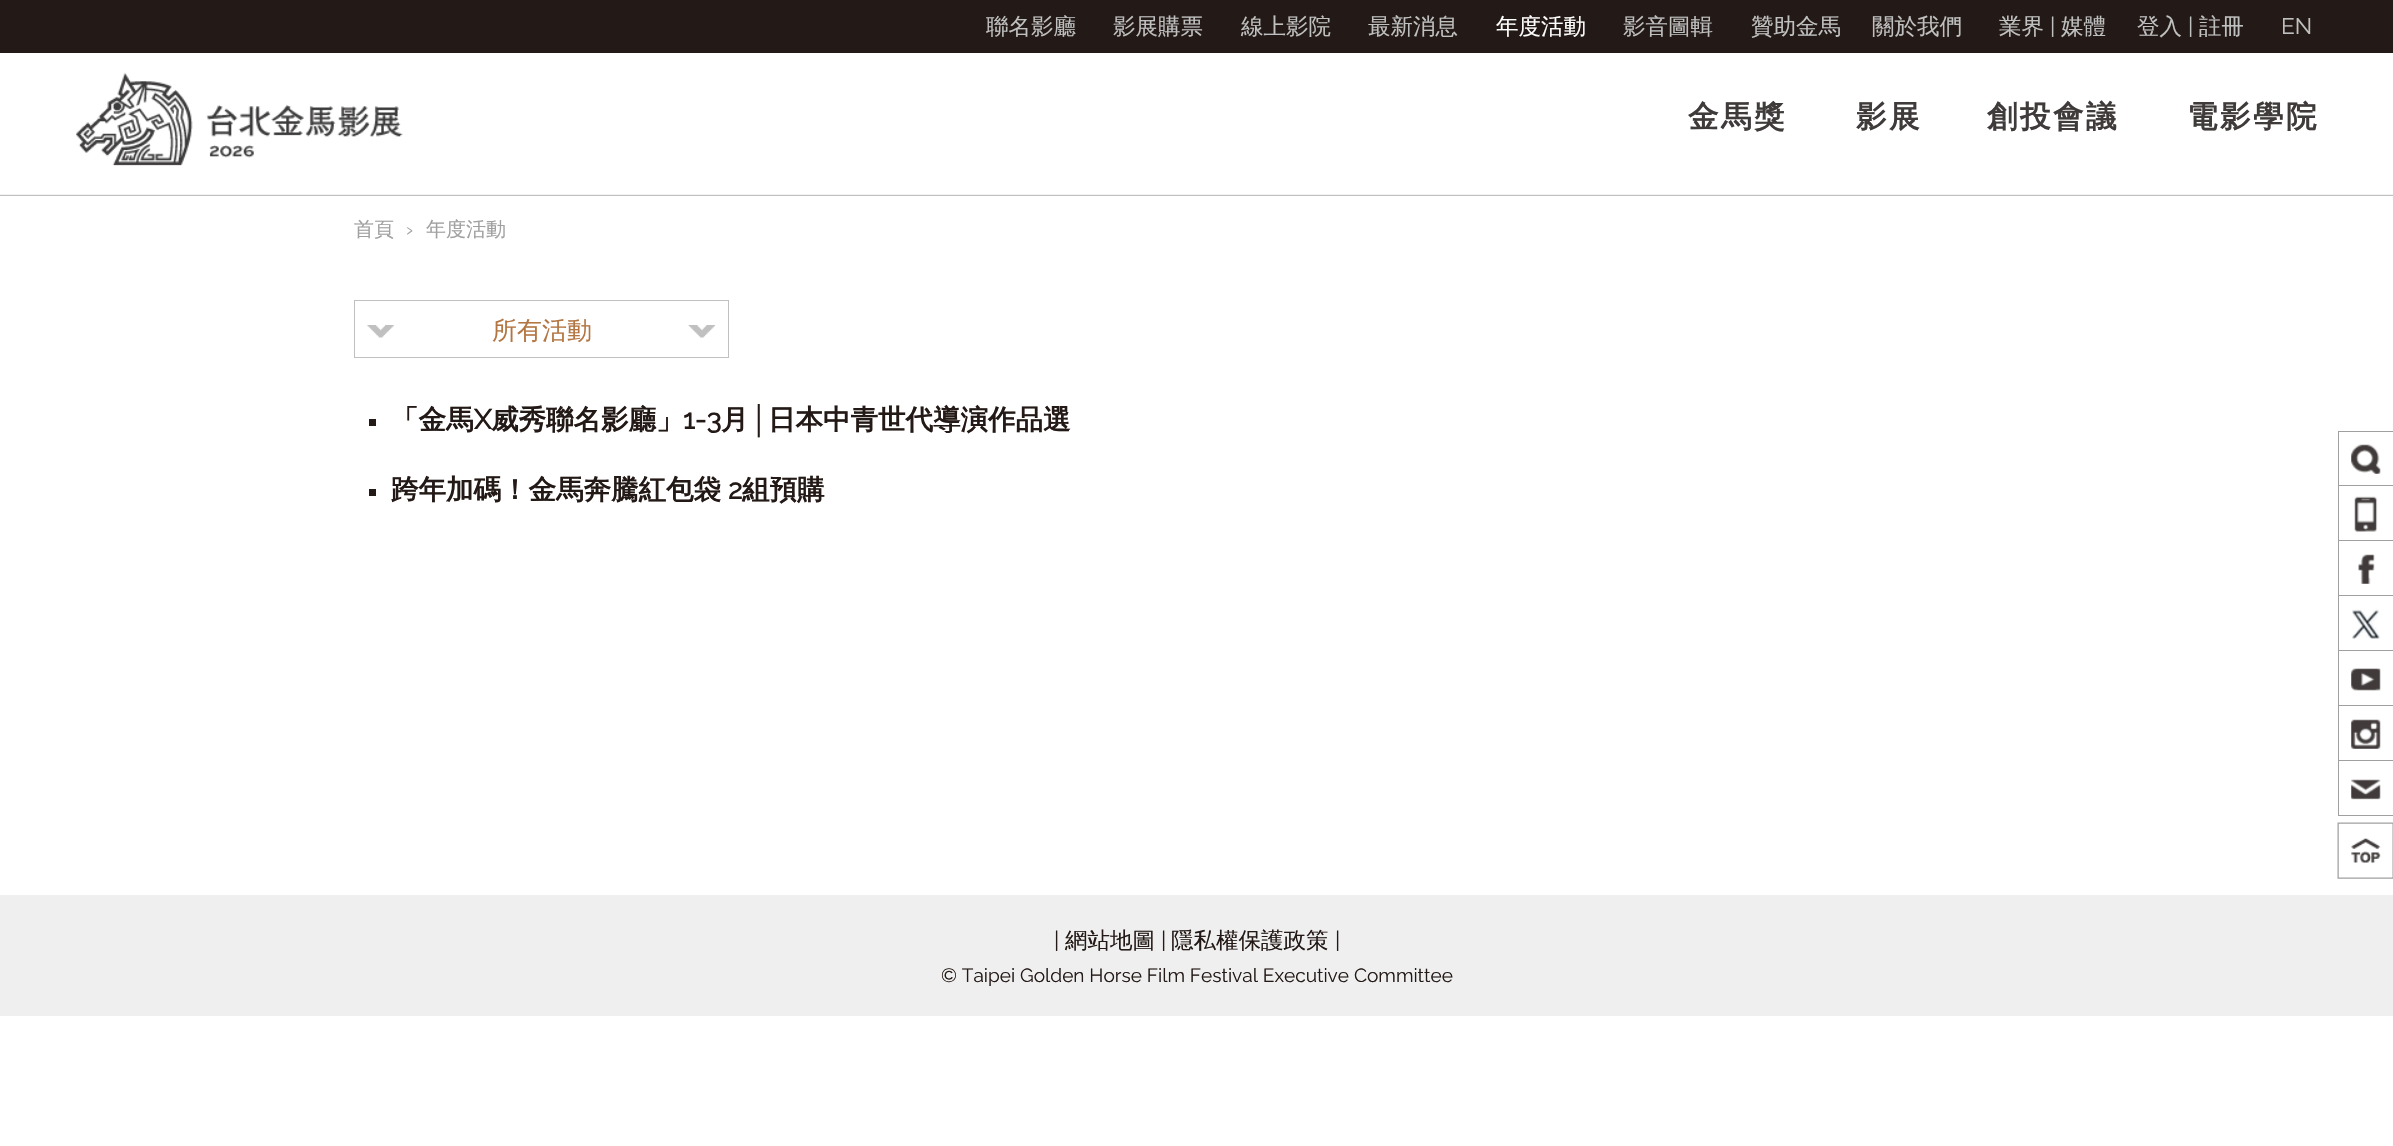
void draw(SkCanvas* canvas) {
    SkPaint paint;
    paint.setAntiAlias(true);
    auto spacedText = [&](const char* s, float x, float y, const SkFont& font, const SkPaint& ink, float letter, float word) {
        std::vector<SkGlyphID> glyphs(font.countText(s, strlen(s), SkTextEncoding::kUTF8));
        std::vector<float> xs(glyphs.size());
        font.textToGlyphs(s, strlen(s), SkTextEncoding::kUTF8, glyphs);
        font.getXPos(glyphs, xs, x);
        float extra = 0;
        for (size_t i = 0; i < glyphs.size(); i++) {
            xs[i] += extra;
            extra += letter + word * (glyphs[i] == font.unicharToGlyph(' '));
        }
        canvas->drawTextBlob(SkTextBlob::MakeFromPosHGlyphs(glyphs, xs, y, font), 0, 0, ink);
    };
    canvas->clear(0xFFFFFFFF);
    paint.setColor(0xFFF2F2F2);
    canvas->drawRect(SkRect::MakeXYWH(0, 194, 2393, 1), paint);
    paint.setColor(0xFF231916);
    canvas->drawRect(SkRect::MakeXYWH(0, 0, 2393, 53), paint);
    SkFont font1(fontMgr->matchFamilyStyle("WenQuanYi Zen Hei", SkFontStyle(500, SkFontStyle::kNormal_Width, SkFontStyle::kUpright_Slant)), 22.5f);
    font1.setSubpixel(true);
    paint.setColor(0xFFBFC0C0);
    canvas->drawString("聯名影廳", 986, 34, font1, paint);
    canvas->drawString("影展購票", 1113, 34, font1, paint);
    canvas->drawString("線上影院", 1241, 34, font1, paint);
    canvas->drawString("最新消息", 1368, 34, font1, paint);
    paint.setColor(0xFFFFFFFF);
    canvas->drawString("年度活動", 1496, 34, font1, paint);
    paint.setColor(0xFFBFC0C0);
    canvas->drawString("影音圖輯", 1623, 34, font1, paint);
    canvas->drawString("贊助金馬", 1751, 34, font1, paint);
    canvas->drawString("關於我們", 1872, 34, font1, paint);
    canvas->drawString("業界", 1999, 34, font1, paint);
    SkFont font2(fontMgr->matchFamilyStyle("Raleway", SkFontStyle(100, SkFontStyle::kNormal_Width, SkFontStyle::kUpright_Slant)), 22.5f);
    font2.setSubpixel(true);
    canvas->drawString("|", 2050, 34, font2, paint);
    canvas->drawString("媒體", 2061, 34, font1, paint);
    canvas->drawString("登入", 2137, 34, font1, paint);
    canvas->drawString("|", 2188, 34, font2, paint);
    canvas->drawString("註冊", 2199, 34, font1, paint);
    canvas->drawString("EN", 2281, 34, font2, paint);
    canvas->drawImageRect(SkImages::DeferredFromEncodedData(SkData::MakeFromFileName("img1.png")), SkRect::MakeXYWH(76, 72, 327, 94), SkSamplingOptions());
    SkFont font3(fontMgr->matchFamilyStyle("WenQuanYi Zen Hei", SkFontStyle::Bold()), 30.5f);
    font3.setSubpixel(true);
    paint.setColor(0xFF3F3B3A);
    spacedText("金馬獎", 1688, 127, font3, paint, 2.5f, 0);
    spacedText("影展", 1856, 127, font3, paint, 2.5f, 0);
    spacedText("創投會議", 1987, 127, font3, paint, 2.5f, 0);
    spacedText("電影學院", 2187, 127, font3, paint, 2.5f, 0);
    paint.setColor(0xFFC0C0C0);
    canvas->drawRect(SkRect::MakeXYWH(0, 195, 2393, 1), paint);
    SkFont font4(fontMgr->matchFamilyStyle("WenQuanYi Zen Hei", SkFontStyle(500, SkFontStyle::kNormal_Width, SkFontStyle::kUpright_Slant)), 20);
    font4.setSubpixel(true);
    paint.setColor(0xFF9FA0A0);
    canvas->drawString("首頁", 354, 236, font4, paint);
    SkFont font5(fontMgr->matchFamilyStyle("Raleway", SkFontStyle(100, SkFontStyle::kNormal_Width, SkFontStyle::kUpright_Slant)), 20);
    font5.setSubpixel(true);
    canvas->drawString("›", 406, 236, font5, paint);
    canvas->drawString("年度活動", 426, 236, font4, paint);
    paint.setStyle(SkPaint::kStroke_Style);
    paint.setStrokeWidth(1);
    paint.setColor(0xFFC0C0C0);
    canvas->drawRect(SkRect::MakeXYWH(354.5f, 300.5f, 374, 57), paint);
    canvas->drawImageRect(SkImages::DeferredFromEncodedData(SkData::MakeFromFileName("img2.png")), SkRect::MakeXYWH(367, 325, 27, 13), SkSamplingOptions());
    SkFont font6(fontMgr->matchFamilyStyle("WenQuanYi Zen Hei", SkFontStyle(500, SkFontStyle::kNormal_Width, SkFontStyle::kUpright_Slant)), 25);
    font6.setSubpixel(true);
    paint.setStyle(SkPaint::kFill_Style);
    paint.setColor(0xFFB37642);
    canvas->drawString("所有活動", 492, 339, font6, paint);
    canvas->drawImageRect(SkImages::DeferredFromEncodedData(SkData::MakeFromFileName("img3.png")), SkRect::MakeXYWH(688, 325, 27, 13), SkSamplingOptions());
    paint.setColor(0xFF231916);
    canvas->drawRect(SkRect::MakeXYWH(369, 419, 7, 7), paint);
    SkFont font7(fontMgr->matchFamilyStyle("WenQuanYi Zen Hei", SkFontStyle::Bold()), 27.5f);
    font7.setSubpixel(true);
    canvas->drawString("「金馬", 391, 429, font7, paint);
    SkFont font8(fontMgr->matchFamilyStyle("Raleway", SkFontStyle::Bold()), 27.5f);
    font8.setSubpixel(true);
    canvas->drawString("X", 474, 429, font8, paint);
    canvas->drawString("威秀聯名影廳」", 491, 429, font7, paint);
    canvas->drawString("1-3", 683, 429, font8, paint);
    canvas->drawString("月", 721, 429, font7, paint);
    SkFont font9(fontMgr->matchFamilyStyle("Liberation Serif", SkFontStyle::Bold()), 27.5f);
    font9.setSubpixel(true);
    canvas->drawString("│", 749, 429, font9, paint);
    canvas->drawString("日本中青世代導演作品選", 768, 429, font7, paint);
    canvas->drawRect(SkRect::MakeXYWH(369, 489, 7, 7), paint);
    canvas->drawString("跨年加碼！金馬奔騰紅包袋", 391, 499, font7, paint);
    canvas->drawString("2", 728, 499, font8, paint);
    canvas->drawString("組預購", 742, 499, font7, paint);
    paint.setColor(0xFF9FA0A0);
    canvas->drawRect(SkRect::MakeXYWH(2338, 431, 55, 1), paint);
    canvas->drawRect(SkRect::MakeXYWH(2338, 431, 1, 385), paint);
    canvas->drawRect(SkRect::MakeXYWH(2339, 485, 54, 1), paint);
    canvas->drawImageRect(SkImages::DeferredFromEncodedData(SkData::MakeFromFileName("img4.png")), SkRect::MakeXYWH(2351, 444, 30, 30), SkSamplingOptions());
    canvas->drawRect(SkRect::MakeXYWH(2339, 540, 54, 1), paint);
    canvas->drawImageRect(SkImages::DeferredFromEncodedData(SkData::MakeFromFileName("img5.png")), SkRect::MakeXYWH(2354, 496, 24, 36), SkSamplingOptions());
    canvas->drawRect(SkRect::MakeXYWH(2339, 595, 54, 1), paint);
    canvas->drawImageRect(SkImages::DeferredFromEncodedData(SkData::MakeFromFileName("img6.png")), SkRect::MakeXYWH(2358, 554, 17, 30), SkSamplingOptions());
    canvas->drawRect(SkRect::MakeXYWH(2339, 650, 54, 1), paint);
    canvas->drawImageRect(SkImages::DeferredFromEncodedData(SkData::MakeFromFileName("img7.png")), SkRect::MakeXYWH(2352, 609, 28, 30), SkSamplingOptions());
    canvas->drawRect(SkRect::MakeXYWH(2339, 705, 54, 1), paint);
    canvas->drawImageRect(SkImages::DeferredFromEncodedData(SkData::MakeFromFileName("img8.png")), SkRect::MakeXYWH(2351, 668, 30, 23), SkSamplingOptions());
    canvas->drawRect(SkRect::MakeXYWH(2339, 760, 54, 1), paint);
    canvas->drawImageRect(SkImages::DeferredFromEncodedData(SkData::MakeFromFileName("img9.png")), SkRect::MakeXYWH(2351, 719, 30, 30), SkSamplingOptions());
    canvas->drawRect(SkRect::MakeXYWH(2339, 815, 54, 1), paint);
    canvas->drawImageRect(SkImages::DeferredFromEncodedData(SkData::MakeFromFileName("img10.png")), SkRect::MakeXYWH(2351, 779, 30, 21), SkSamplingOptions());
    canvas->drawImageRect(SkImages::DeferredFromEncodedData(SkData::MakeFromFileName("img11.png")), SkRect::MakeXYWH(2337, 822, 56, 57), SkSamplingOptions());
    paint.setColor(0xFFEFEFEF);
    canvas->drawRect(SkRect::MakeXYWH(0, 895, 2393, 121), paint);
    paint.setColor(0xFF231916);
    canvas->drawString("|", 1054, 948, font2, paint);
    canvas->drawString("網站地圖", 1065, 948, font1, paint);
    canvas->drawString("|", 1161, 948, font2, paint);
    canvas->drawString("隱私權保護政策", 1171, 948, font1, paint);
    canvas->drawString("|", 1335, 948, font2, paint);
    SkFont font10(fontMgr->matchFamilyStyle("Raleway", SkFontStyle(100, SkFontStyle::kNormal_Width, SkFontStyle::kUpright_Slant)), 19.1f);
    font10.setSubpixel(true);
    canvas->drawString("© Taipei Golden Horse Film Festival Executive Committee", 941, 982, font10, paint);
}
